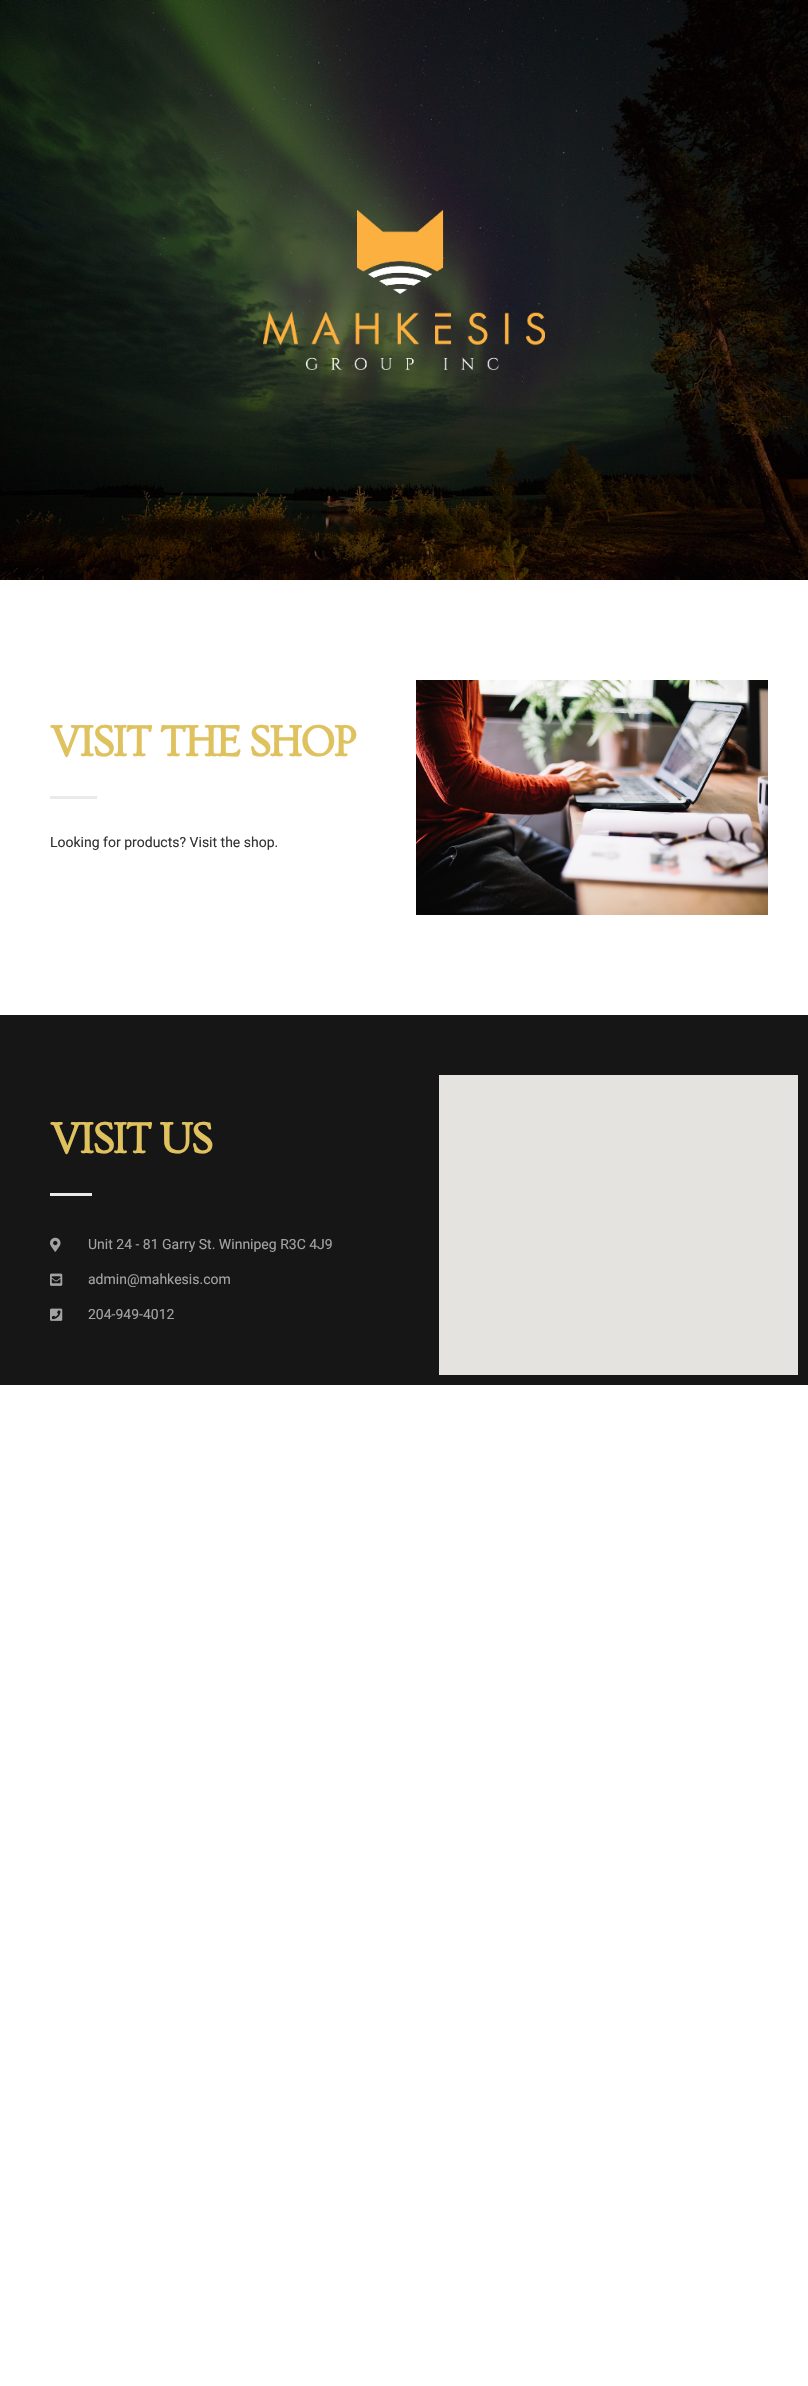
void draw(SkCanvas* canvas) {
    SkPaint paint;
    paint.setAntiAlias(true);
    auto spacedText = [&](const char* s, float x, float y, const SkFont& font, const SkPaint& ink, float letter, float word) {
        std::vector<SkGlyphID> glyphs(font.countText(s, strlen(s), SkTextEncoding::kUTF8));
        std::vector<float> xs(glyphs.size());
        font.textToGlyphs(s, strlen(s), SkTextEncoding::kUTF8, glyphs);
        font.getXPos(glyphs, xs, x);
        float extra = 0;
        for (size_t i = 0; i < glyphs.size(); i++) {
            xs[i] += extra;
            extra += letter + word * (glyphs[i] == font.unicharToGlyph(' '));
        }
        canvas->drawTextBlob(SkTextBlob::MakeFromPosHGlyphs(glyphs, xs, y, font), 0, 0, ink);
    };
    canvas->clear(0xFFFFFFFF);
    canvas->drawImageRect(SkImages::DeferredFromEncodedData(SkData::MakeFromFileName("img1.png")), SkRect::MakeXYWH(0, 0, 808, 580), SkSamplingOptions());
    canvas->drawImageRect(SkImages::DeferredFromEncodedData(SkData::MakeFromFileName("img2.png")), SkRect::MakeXYWH(263, 210, 282, 160), SkSamplingOptions());
    SkFont font1(fontMgr->matchFamilyStyle("Ovo", SkFontStyle::Bold()), 45);
    font1.setSubpixel(true);
    paint.setColor(0xFFDFC15E);
    spacedText("VISIT THE SHOP", 50, 756, font1, paint, -2, 0);
    paint.setColor(0xFFEAEAEA);
    canvas->drawRect(SkRect::MakeXYWH(50, 796, 47, 3), paint);
    SkFont font2(fontMgr->matchFamilyStyle("Roboto", SkFontStyle::Normal()), 14);
    font2.setSubpixel(true);
    paint.setColor(0xFF333333);
    canvas->drawString("Looking for products? Visit the shop.", 50, 847, font2, paint);
    canvas->drawImageRect(SkImages::DeferredFromEncodedData(SkData::MakeFromFileName("img3.png")), SkRect::MakeXYWH(416, 680, 352, 235), SkSamplingOptions());
    paint.setColor(0xFF161617);
    canvas->drawRect(SkRect::MakeXYWH(0, 1015, 808, 370), paint);
    paint.setColor(0xFFDFC15E);
    spacedText("VISIT US", 50, 1153, font1, paint, -2, 0);
    paint.setColor(0xFFEAEAEA);
    canvas->drawRect(SkRect::MakeXYWH(50, 1193, 42, 3), paint);
    canvas->drawImageRect(SkImages::DeferredFromEncodedData(SkData::MakeFromFileName("img4.png")), SkRect::MakeXYWH(50, 1237, 11, 15), SkSamplingOptions());
    paint.setColor(0xFFA3A3A3);
    canvas->drawString("Unit 24 - 81 Garry St. Winnipeg R3C 4J9", 88, 1249, font2, paint);
    canvas->drawImageRect(SkImages::DeferredFromEncodedData(SkData::MakeFromFileName("img5.png")), SkRect::MakeXYWH(50, 1273, 13, 13), SkSamplingOptions());
    canvas->drawString("admin@mahkesis.com", 88, 1284, font2, paint);
    canvas->drawImageRect(SkImages::DeferredFromEncodedData(SkData::MakeFromFileName("img6.png")), SkRect::MakeXYWH(50, 1308, 13, 13), SkSamplingOptions());
    canvas->drawString("204-949-4012", 88, 1319, font2, paint);
    paint.setColor(0xFFE5E3DF);
    canvas->drawRect(SkRect::MakeXYWH(439, 1075, 359, 300), paint);
}
